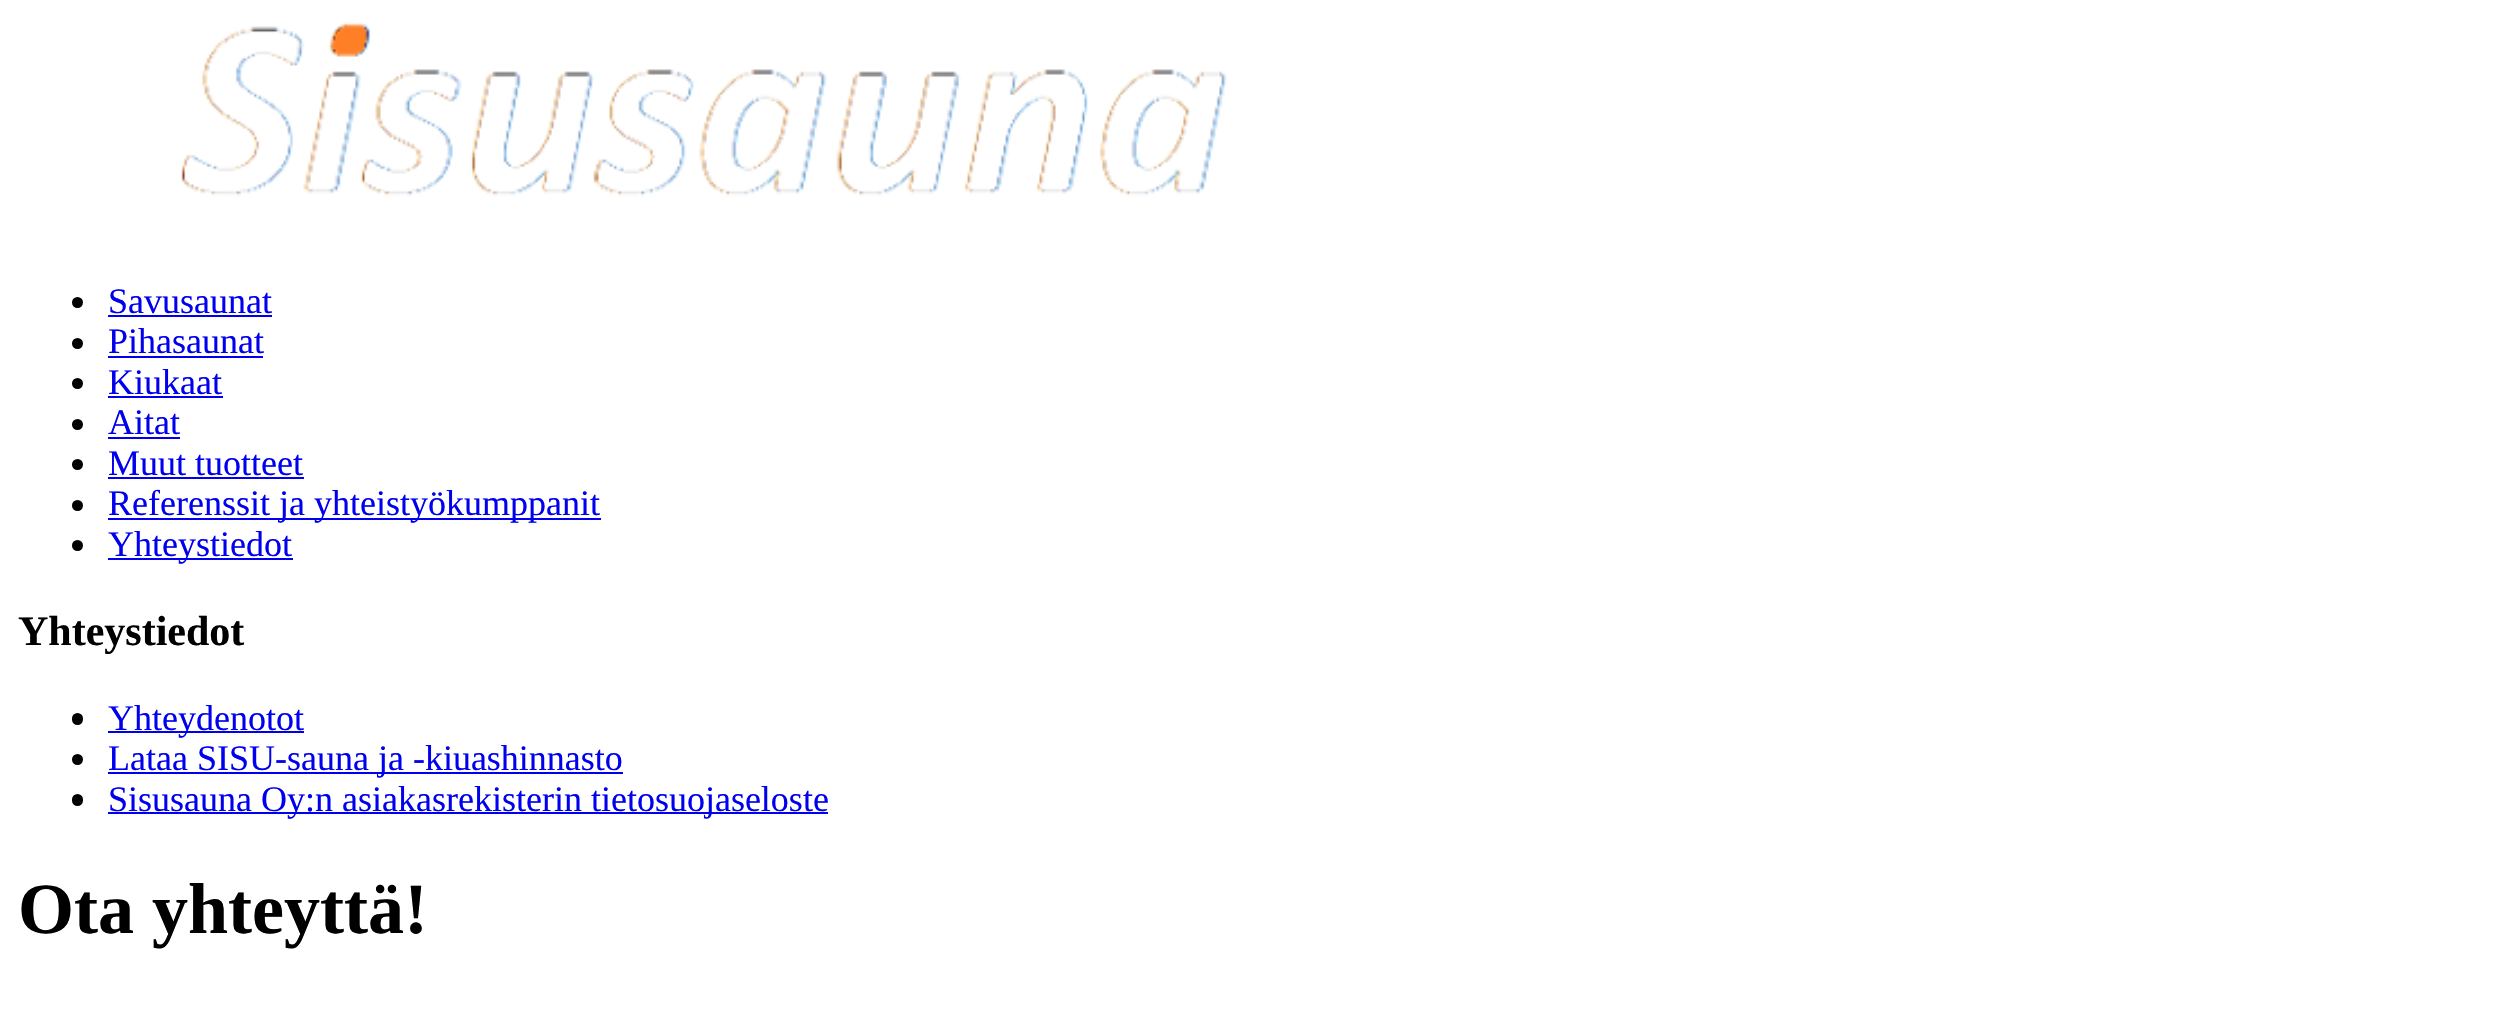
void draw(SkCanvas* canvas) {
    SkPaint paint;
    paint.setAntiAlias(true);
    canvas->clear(0xFFFFFFFF);
    canvas->drawImageRect(SkImages::DeferredFromEncodedData(SkData::MakeFromFileName("img1.png")), SkRect::MakeXYWH(181, 22, 1046, 175), SkSamplingOptions());
    paint.setColor(0xFF000000);
    canvas->drawCircle(77.5f, 302.5f, 5.5f, paint);
    SkFont font1(fontMgr->matchFamilyStyle("Liberation Serif", SkFontStyle::Normal()), 36);
    font1.setSubpixel(true);
    paint.setColor(0xFF0000EE);
    canvas->drawString("Savusaunat", 108, 313, font1, paint);
    canvas->drawRect(SkRect::MakeXYWH(108, 315, 164, 2), paint);
    paint.setColor(0xFF000000);
    canvas->drawCircle(77.5f, 343.5f, 5.5f, paint);
    paint.setColor(0xFF0000EE);
    canvas->drawString("Pihasaunat", 108, 353, font1, paint);
    canvas->drawRect(SkRect::MakeXYWH(108, 356, 155, 2), paint);
    paint.setColor(0xFF000000);
    canvas->drawCircle(77.5f, 383.5f, 5.5f, paint);
    paint.setColor(0xFF0000EE);
    canvas->drawString("Kiukaat", 108, 394, font1, paint);
    canvas->drawRect(SkRect::MakeXYWH(108, 396, 115, 2), paint);
    paint.setColor(0xFF000000);
    canvas->drawCircle(77.5f, 424.5f, 5.5f, paint);
    paint.setColor(0xFF0000EE);
    canvas->drawString("Aitat", 108, 434, font1, paint);
    canvas->drawRect(SkRect::MakeXYWH(108, 437, 72, 2), paint);
    paint.setColor(0xFF000000);
    canvas->drawCircle(77.5f, 464.5f, 5.5f, paint);
    paint.setColor(0xFF0000EE);
    canvas->drawString("Muut tuotteet", 108, 475, font1, paint);
    canvas->drawRect(SkRect::MakeXYWH(108, 477, 196, 2), paint);
    paint.setColor(0xFF000000);
    canvas->drawCircle(77.5f, 505.5f, 5.5f, paint);
    paint.setColor(0xFF0000EE);
    canvas->drawRect(SkRect::MakeXYWH(108, 518, 493, 2), paint);
    canvas->drawString("Referenssit ja yhteistyökumppanit", 108, 515, font1, paint);
    paint.setColor(0xFF000000);
    canvas->drawCircle(77.5f, 545.5f, 5.5f, paint);
    paint.setColor(0xFF0000EE);
    canvas->drawRect(SkRect::MakeXYWH(108, 558, 185, 2), paint);
    canvas->drawString("Yhteystiedot", 108, 556, font1, paint);
    SkFont font2(fontMgr->matchFamilyStyle("Liberation Serif", SkFontStyle::Bold()), 42);
    font2.setSubpixel(true);
    paint.setColor(0xFF000000);
    canvas->drawString("Yhteystiedot", 18, 645, font2, paint);
    canvas->drawRoundRect(SkRect::MakeXYWH(72, 713, 11, 12), 5.5f, 5.5f, paint);
    paint.setColor(0xFF0000EE);
    canvas->drawRect(SkRect::MakeXYWH(108, 731, 196, 2), paint);
    canvas->drawString("Yhteydenotot", 108, 730, font1, paint);
    paint.setColor(0xFF000000);
    canvas->drawCircle(77.5f, 759.5f, 5.5f, paint);
    paint.setColor(0xFF0000EE);
    canvas->drawRect(SkRect::MakeXYWH(108, 772, 515, 2), paint);
    canvas->drawString("Lataa SISU-sauna ja -kiuashinnasto", 108, 770, font1, paint);
    paint.setColor(0xFF000000);
    canvas->drawRoundRect(SkRect::MakeXYWH(72, 794, 11, 12), 5.5f, 5.5f, paint);
    paint.setColor(0xFF0000EE);
    canvas->drawRect(SkRect::MakeXYWH(108, 812, 720, 2), paint);
    canvas->drawString("Sisusauna Oy:n asiakasrekisterin tietosuojaseloste", 108, 811, font1, paint);
    SkFont font3(fontMgr->matchFamilyStyle("Liberation Serif", SkFontStyle::Bold()), 72);
    font3.setSubpixel(true);
    paint.setColor(0xFF000000);
    canvas->drawString("Ota yhteyttä!", 18, 933, font3, paint);
}
